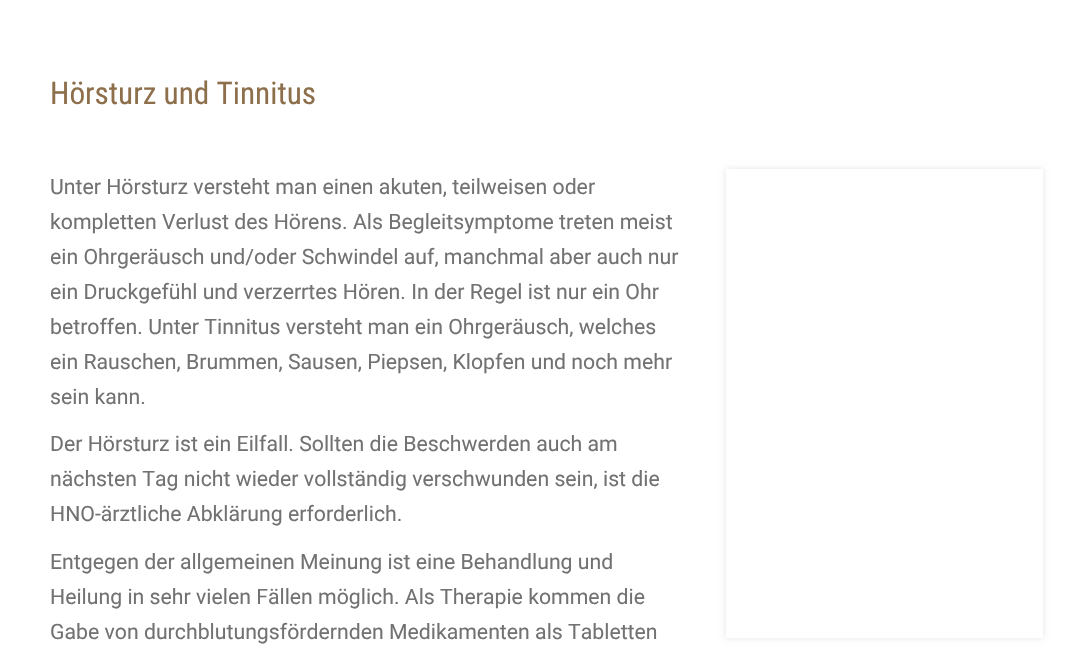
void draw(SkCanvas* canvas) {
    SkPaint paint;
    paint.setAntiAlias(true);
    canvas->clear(0xFFFFFFFF);
    SkFont font1(fontMgr->matchFamilyStyle("Roboto Condensed", SkFontStyle::Normal()), 31.25f);
    font1.setSubpixel(true);
    paint.setColor(0xFF8D6F4B);
    canvas->drawString("Hörsturz und Tinnitus", 50, 104, font1, paint);
    SkFont font2(fontMgr->matchFamilyStyle("Roboto", SkFontStyle::Normal()), 21.25f);
    font2.setSubpixel(true);
    paint.setColor(0xFF727272);
    canvas->drawString("Unter Hörsturz versteht man einen akuten, teilweisen oder", 50, 194, font2, paint);
    canvas->drawString("kompletten Verlust des Hörens. Als Begleitsymptome treten meist", 50, 229, font2, paint);
    canvas->drawString("ein Ohrgeräusch und/oder Schwindel auf, manchmal aber auch nur", 50, 264, font2, paint);
    canvas->drawString("ein Druckgefühl und verzerrtes Hören. In der Regel ist nur ein Ohr", 50, 299, font2, paint);
    canvas->drawString("betroffen. Unter Tinnitus versteht man ein Ohrgeräusch, welches", 50, 334, font2, paint);
    canvas->drawString("ein Rauschen, Brummen, Sausen, Piepsen, Klopfen und noch mehr", 50, 369, font2, paint);
    canvas->drawString("sein kann.", 50, 404, font2, paint);
    canvas->drawString("Der Hörsturz ist ein Eilfall. Sollten die Beschwerden auch am", 50, 451, font2, paint);
    canvas->drawString("nächsten Tag nicht wieder vollständig verschwunden sein, ist die", 50, 486, font2, paint);
    canvas->drawString("HNO-ärztliche Abklärung erforderlich.", 50, 521, font2, paint);
    canvas->drawString("Entgegen der allgemeinen Meinung ist eine Behandlung und", 50, 569, font2, paint);
    canvas->drawString("Heilung in sehr vielen Fällen möglich. Als Therapie kommen die", 50, 604, font2, paint);
    canvas->drawString("Gabe von durchblutungsfördernden Medikamenten als Tabletten", 50, 639, font2, paint);
    canvas->save();
    canvas->clipPath(SkPathBuilder(SkPathFillType::kEvenOdd).moveTo(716, 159).lineTo(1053, 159).lineTo(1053, 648).lineTo(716, 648).close().moveTo(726, 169).lineTo(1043, 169).lineTo(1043, 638).lineTo(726, 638).close().detach(), true);
    paint.setColor(0x1A000000);
    paint.setMaskFilter(SkMaskFilter::MakeBlur(kNormal_SkBlurStyle, 3));
    canvas->drawRect(SkRect::MakeXYWH(726, 169, 317, 469), paint);
    paint.setMaskFilter(nullptr);
    canvas->restore();
}
